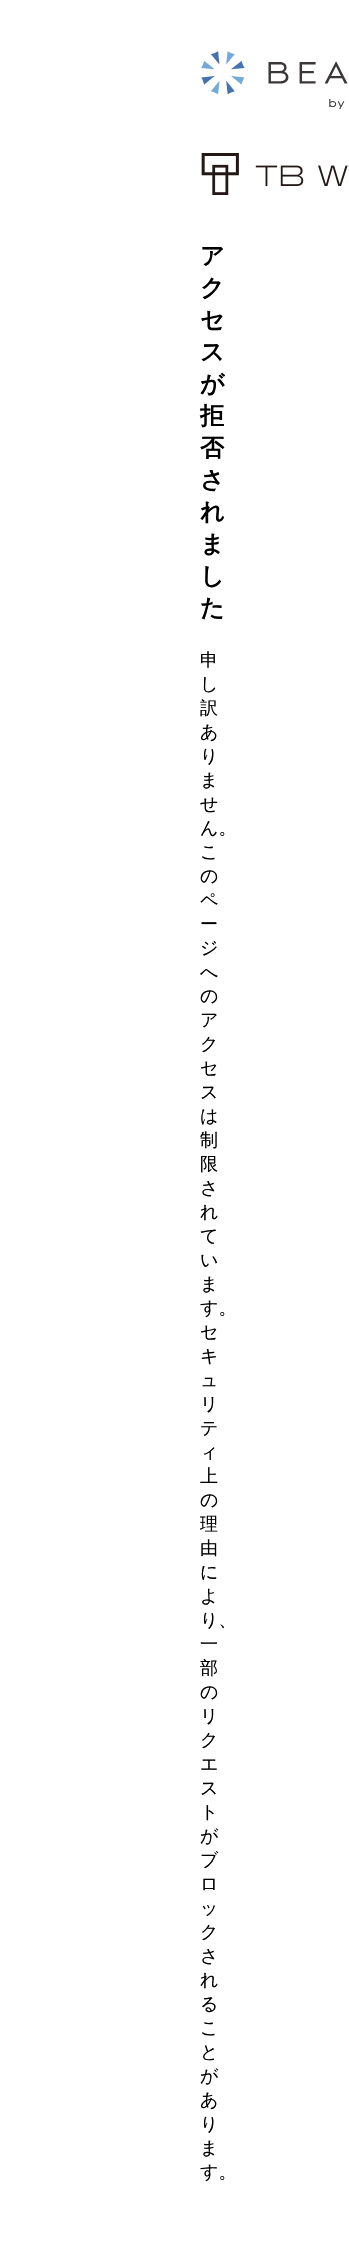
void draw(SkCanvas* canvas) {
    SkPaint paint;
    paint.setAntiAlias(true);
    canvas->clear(0xFFFFFFFF);
    canvas->drawImageRect(SkImages::DeferredFromEncodedData(SkData::MakeFromFileName("img1.png")), SkRect::MakeXYWH(201, 51, 147, 58), SkSamplingOptions());
    canvas->drawImageRect(SkImages::DeferredFromEncodedData(SkData::MakeFromFileName("img2.png")), SkRect::MakeXYWH(201, 153, 147, 42), SkSamplingOptions());
    SkFont font1(fontMgr->matchFamilyStyle("WenQuanYi Zen Hei", SkFontStyle::Bold()), 24);
    font1.setSubpixel(true);
    paint.setColor(0xFF000000);
    canvas->drawString("ア", 200, 264, font1, paint);
    canvas->drawString("ク", 200, 296, font1, paint);
    canvas->drawString("セ", 200, 328, font1, paint);
    canvas->drawString("ス", 200, 360, font1, paint);
    canvas->drawString("が", 200, 392, font1, paint);
    canvas->drawString("拒", 200, 424, font1, paint);
    canvas->drawString("否", 200, 456, font1, paint);
    canvas->drawString("さ", 200, 488, font1, paint);
    canvas->drawString("れ", 200, 520, font1, paint);
    canvas->drawString("ま", 200, 552, font1, paint);
    canvas->drawString("し", 200, 584, font1, paint);
    canvas->drawString("た", 200, 616, font1, paint);
    SkFont font2(fontMgr->matchFamilyStyle("WenQuanYi Zen Hei", SkFontStyle(500, SkFontStyle::kNormal_Width, SkFontStyle::kUpright_Slant)), 18);
    font2.setSubpixel(true);
    canvas->drawString("申", 200, 666, font2, paint);
    canvas->drawString("し", 200, 690, font2, paint);
    canvas->drawString("訳", 200, 714, font2, paint);
    canvas->drawString("あ", 200, 738, font2, paint);
    canvas->drawString("り", 200, 762, font2, paint);
    canvas->drawString("ま", 200, 786, font2, paint);
    canvas->drawString("せ", 200, 810, font2, paint);
    canvas->drawString("ん。", 200, 834, font2, paint);
    canvas->drawString("こ", 200, 858, font2, paint);
    canvas->drawString("の", 200, 882, font2, paint);
    canvas->drawString("ペ", 200, 906, font2, paint);
    canvas->drawString("ー", 200, 930, font2, paint);
    canvas->drawString("ジ", 200, 954, font2, paint);
    canvas->drawString("へ", 200, 978, font2, paint);
    canvas->drawString("の", 200, 1002, font2, paint);
    canvas->drawString("ア", 200, 1026, font2, paint);
    canvas->drawString("ク", 200, 1050, font2, paint);
    canvas->drawString("セ", 200, 1074, font2, paint);
    canvas->drawString("ス", 200, 1098, font2, paint);
    canvas->drawString("は", 200, 1122, font2, paint);
    canvas->drawString("制", 200, 1146, font2, paint);
    canvas->drawString("限", 200, 1170, font2, paint);
    canvas->drawString("さ", 200, 1194, font2, paint);
    canvas->drawString("れ", 200, 1218, font2, paint);
    canvas->drawString("て", 200, 1242, font2, paint);
    canvas->drawString("い", 200, 1266, font2, paint);
    canvas->drawString("ま", 200, 1290, font2, paint);
    canvas->drawString("す。", 200, 1314, font2, paint);
    canvas->drawString("セ", 200, 1338, font2, paint);
    canvas->drawString("キ", 200, 1362, font2, paint);
    canvas->drawString("ュ", 200, 1386, font2, paint);
    canvas->drawString("リ", 200, 1410, font2, paint);
    canvas->drawString("テ", 200, 1434, font2, paint);
    canvas->drawString("ィ", 200, 1458, font2, paint);
    canvas->drawString("上", 200, 1482, font2, paint);
    canvas->drawString("の", 200, 1506, font2, paint);
    canvas->drawString("理", 200, 1530, font2, paint);
    canvas->drawString("由", 200, 1554, font2, paint);
    canvas->drawString("に", 200, 1578, font2, paint);
    canvas->drawString("よ", 200, 1602, font2, paint);
    canvas->drawString("り、", 200, 1626, font2, paint);
    canvas->drawString("一", 200, 1650, font2, paint);
    canvas->drawString("部", 200, 1674, font2, paint);
    canvas->drawString("の", 200, 1698, font2, paint);
    canvas->drawString("リ", 200, 1722, font2, paint);
    canvas->drawString("ク", 200, 1746, font2, paint);
    canvas->drawString("エ", 200, 1770, font2, paint);
    canvas->drawString("ス", 200, 1794, font2, paint);
    canvas->drawString("ト", 200, 1818, font2, paint);
    canvas->drawString("が", 200, 1842, font2, paint);
    canvas->drawString("ブ", 200, 1866, font2, paint);
    canvas->drawString("ロ", 200, 1890, font2, paint);
    canvas->drawString("ッ", 200, 1914, font2, paint);
    canvas->drawString("ク", 200, 1938, font2, paint);
    canvas->drawString("さ", 200, 1962, font2, paint);
    canvas->drawString("れ", 200, 1986, font2, paint);
    canvas->drawString("る", 200, 2010, font2, paint);
    canvas->drawString("こ", 200, 2034, font2, paint);
    canvas->drawString("と", 200, 2058, font2, paint);
    canvas->drawString("が", 200, 2082, font2, paint);
    canvas->drawString("あ", 200, 2106, font2, paint);
    canvas->drawString("り", 200, 2130, font2, paint);
    canvas->drawString("ま", 200, 2154, font2, paint);
    canvas->drawString("す。", 200, 2178, font2, paint);
}
